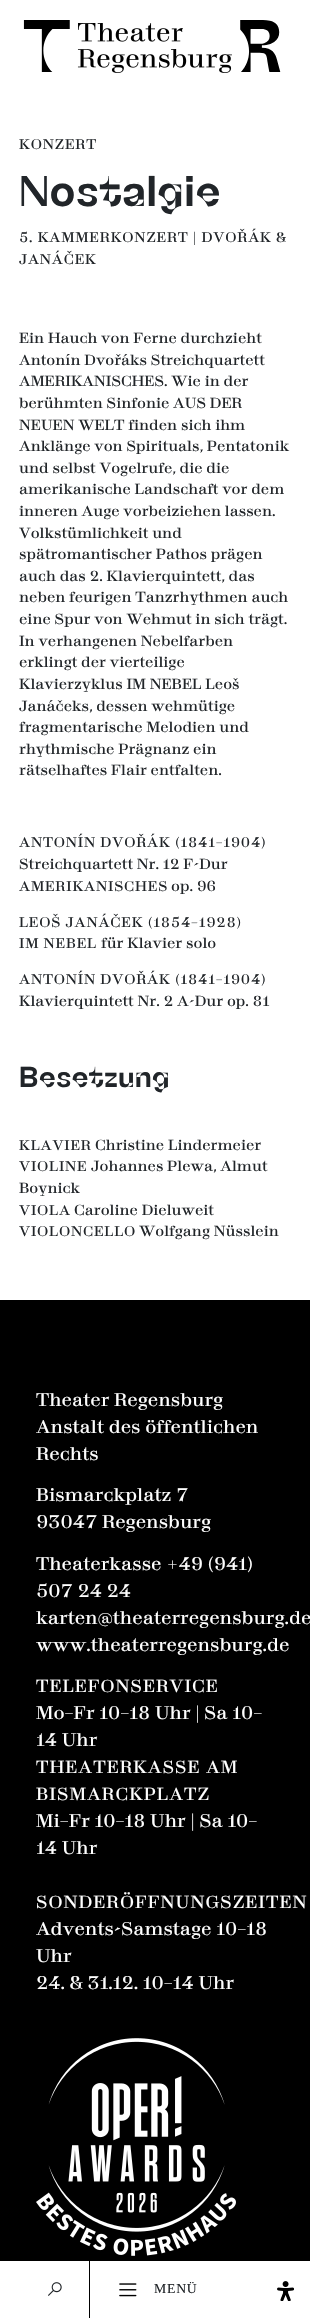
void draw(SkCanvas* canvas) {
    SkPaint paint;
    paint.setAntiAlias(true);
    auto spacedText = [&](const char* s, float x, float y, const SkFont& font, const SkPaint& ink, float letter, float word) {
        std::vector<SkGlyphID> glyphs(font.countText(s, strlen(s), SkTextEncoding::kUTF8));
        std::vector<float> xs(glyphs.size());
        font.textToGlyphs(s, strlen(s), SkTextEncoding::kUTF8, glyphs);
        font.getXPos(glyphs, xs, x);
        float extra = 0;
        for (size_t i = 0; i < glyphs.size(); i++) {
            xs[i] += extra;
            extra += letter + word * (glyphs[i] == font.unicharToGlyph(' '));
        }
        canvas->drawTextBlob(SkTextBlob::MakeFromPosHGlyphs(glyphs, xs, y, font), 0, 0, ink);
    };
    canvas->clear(0xFFFFFFFF);
    canvas->drawImageRect(SkImages::DeferredFromEncodedData(SkData::MakeFromFileName("img1.png")), SkRect::MakeXYWH(23, 20, 47, 52), SkSamplingOptions());
    canvas->drawImageRect(SkImages::DeferredFromEncodedData(SkData::MakeFromFileName("img2.png")), SkRect::MakeXYWH(240, 20, 41, 52), SkSamplingOptions());
    canvas->drawImageRect(SkImages::DeferredFromEncodedData(SkData::MakeFromFileName("img3.png")), SkRect::MakeXYWH(77, 23, 155, 50), SkSamplingOptions());
    SkFont font1(fontMgr->matchFamilyStyle("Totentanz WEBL", SkFontStyle::Normal()), 13.7f);
    font1.setSubpixel(true);
    paint.setColor(0xFF212529);
    spacedText("KONZERT", 19, 149, font1, paint, 0.8f, 0);
    SkFont font2(fontMgr->matchFamilyStyle("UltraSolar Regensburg", SkFontStyle::Normal()), 43);
    font2.setSubpixel(true);
    canvas->drawString("Nostalgie", 19, 206, font2, paint);
    spacedText("5. KAMMERKONZERT | DVOŘÁK &", 19, 242, font1, paint, 0.8f, 0);
    spacedText("JANÁČEK", 19, 264, font1, paint, 0.8f, 0);
    SkFont font3(fontMgr->matchFamilyStyle("Totentanz WEBL", SkFontStyle::Normal()), 14.4f);
    font3.setSubpixel(true);
    canvas->drawString("Ein Hauch von Ferne durchzieht", 19, 343, font3, paint);
    canvas->drawString("Antonín Dvořáks Streichquartett", 19, 365, font3, paint);
    canvas->drawString("AMERIKANISCHES. Wie in der", 19, 386, font3, paint);
    canvas->drawString("berühmten Sinfonie AUS DER", 19, 408, font3, paint);
    canvas->drawString("NEUEN WELT finden sich ihm", 19, 430, font3, paint);
    canvas->drawString("Anklänge von Spirituals, Pentatonik", 19, 451, font3, paint);
    canvas->drawString("und selbst Vogelrufe, die die", 19, 473, font3, paint);
    canvas->drawString("amerikanische Landschaft vor dem", 19, 494, font3, paint);
    canvas->drawString("inneren Auge vorbeiziehen lassen.", 19, 516, font3, paint);
    canvas->drawString("Volkstümlichkeit und", 19, 538, font3, paint);
    canvas->drawString("spätromantischer Pathos prägen", 19, 559, font3, paint);
    canvas->drawString("auch das 2. Klavierquintett, das", 19, 581, font3, paint);
    canvas->drawString("neben feurigen Tanzrhythmen auch", 19, 602, font3, paint);
    canvas->drawString("eine Spur von Wehmut in sich trägt.", 19, 624, font3, paint);
    canvas->drawString("In verhangenen Nebelfarben", 19, 646, font3, paint);
    canvas->drawString("erklingt der vierteilige", 19, 667, font3, paint);
    canvas->drawString("Klavierzyklus IM NEBEL Leoš", 19, 689, font3, paint);
    canvas->drawString("Janáčeks, dessen wehmütige", 19, 711, font3, paint);
    canvas->drawString("fragmentarische Melodien und", 19, 732, font3, paint);
    canvas->drawString("rhythmische Prägnanz ein", 19, 754, font3, paint);
    canvas->drawString("rätselhaftes Flair entfalten.", 19, 775, font3, paint);
    spacedText("ANTONÍN DVOŘÁK (1841–1904)", 19, 847, font1, paint, 0.8f, 0);
    canvas->drawString("Streichquartett Nr. 12 F-Dur", 19, 869, font3, paint);
    spacedText("AMERIKANISCHES", 19, 891, font1, paint, 0.8f, 0);
    canvas->drawString("op. 96", 171, 891, font3, paint);
    spacedText("LEOŠ JANÁČEK (1854–1928)", 19, 927, font1, paint, 0.8f, 0);
    spacedText("IM NEBEL", 19, 948, font1, paint, 0.8f, 0);
    canvas->drawString("für Klavier solo", 101, 948, font3, paint);
    spacedText("ANTONÍN DVOŘÁK (1841–1904)", 19, 984, font1, paint, 0.8f, 0);
    canvas->drawString("Klavierquintett Nr. 2 A-Dur op. 81", 19, 1006, font3, paint);
    SkFont font4(fontMgr->matchFamilyStyle("UltraSolar Regensburg", SkFontStyle::Normal()), 28.75f);
    font4.setSubpixel(true);
    canvas->drawString("Besetzung", 19, 1087, font4, paint);
    spacedText("KLAVIER", 19, 1150, font1, paint, 0.8f, 0);
    canvas->drawString("Christine Lindermeier", 95, 1150, font3, paint);
    spacedText("VIOLINE", 19, 1171, font1, paint, 0.8f, 0);
    canvas->drawString("Johannes Plewa, Almut", 91, 1171, font3, paint);
    canvas->drawString("Boynick", 19, 1193, font3, paint);
    spacedText("VIOLA", 19, 1215, font1, paint, 0.8f, 0);
    canvas->drawString("Caroline Dieluweit", 74, 1215, font3, paint);
    spacedText("VIOLONCELLO", 19, 1236, font1, paint, 0.8f, 0);
    canvas->drawString("Wolfgang Nüsslein", 139, 1236, font3, paint);
    paint.setColor(0xFF000000);
    canvas->drawRect(SkRect::MakeXYWH(0, 1300, 310, 961), paint);
    SkFont font5(fontMgr->matchFamilyStyle("Totentanz WEBL", SkFontStyle::Normal()), 18);
    font5.setSubpixel(true);
    paint.setColor(0xFFFFFFFF);
    canvas->drawString("Theater Regensburg", 36, 1406, font5, paint);
    canvas->drawString("Anstalt des öffentlichen", 36, 1433, font5, paint);
    canvas->drawString("Rechts", 36, 1460, font5, paint);
    canvas->drawString("Bismarckplatz 7", 36, 1501, font5, paint);
    canvas->drawString("93047 Regensburg", 36, 1528, font5, paint);
    canvas->drawString("Theaterkasse +49 (941)", 36, 1570, font5, paint);
    canvas->drawString("507 24 24", 36, 1597, font5, paint);
    canvas->drawString("karten@theaterregensburg.de", 36, 1624, font5, paint);
    canvas->drawString("www.theaterregensburg.de", 36, 1651, font5, paint);
    SkFont font6(fontMgr->matchFamilyStyle("Totentanz WEBL", SkFontStyle::Normal()), 17.1f);
    font6.setSubpixel(true);
    spacedText("TELEFONSERVICE", 36, 1692, font6, paint, 1, 0);
    canvas->drawString("Mo–Fr 10–18 Uhr | Sa 10–", 36, 1719, font5, paint);
    canvas->drawString("14 Uhr", 36, 1746, font5, paint);
    spacedText("THEATERKASSE AM", 36, 1773, font6, paint, 1, 0);
    spacedText("BISMARCKPLATZ", 36, 1800, font6, paint, 1, 0);
    canvas->drawString("Mi–Fr 10–18 Uhr | Sa 10–", 36, 1827, font5, paint);
    canvas->drawString("14 Uhr", 36, 1854, font5, paint);
    spacedText("SONDERÖFFNUNGSZEITEN", 36, 1908, font6, paint, 1, 0);
    canvas->drawString("Advents-Samstage 10–18", 36, 1935, font5, paint);
    canvas->drawString("Uhr", 36, 1962, font5, paint);
    canvas->drawString("24. & 31.12. 10–14 Uhr", 36, 1989, font5, paint);
    canvas->drawImageRect(SkImages::DeferredFromEncodedData(SkData::MakeFromFileName("img4.png")), SkRect::MakeXYWH(36, 2038, 200, 218), SkSamplingOptions());
    paint.setColor(0xFF000000);
    canvas->drawRect(SkRect::MakeXYWH(89, 2261, 1, 57), paint);
    canvas->drawImageRect(SkImages::DeferredFromEncodedData(SkData::MakeFromFileName("img5.png")), SkRect::MakeXYWH(48, 2282, 14, 14), SkSamplingOptions());
    canvas->drawImageRect(SkImages::DeferredFromEncodedData(SkData::MakeFromFileName("img6.png")), SkRect::MakeXYWH(119, 2283, 18, 14), SkSamplingOptions());
    SkFont font7(fontMgr->matchFamilyStyle("Liberation Serif", SkFontStyle::Normal()), 13.7f);
    font7.setSubpixel(true);
    paint.setColor(0xFF212529);
    spacedText("MENÜ", 154, 2293, font7, paint, 0.8f, 0);
    canvas->drawImageRect(SkImages::DeferredFromEncodedData(SkData::MakeFromFileName("img7.png")), SkRect::MakeXYWH(277, 2281, 17, 20), SkSamplingOptions());
}
